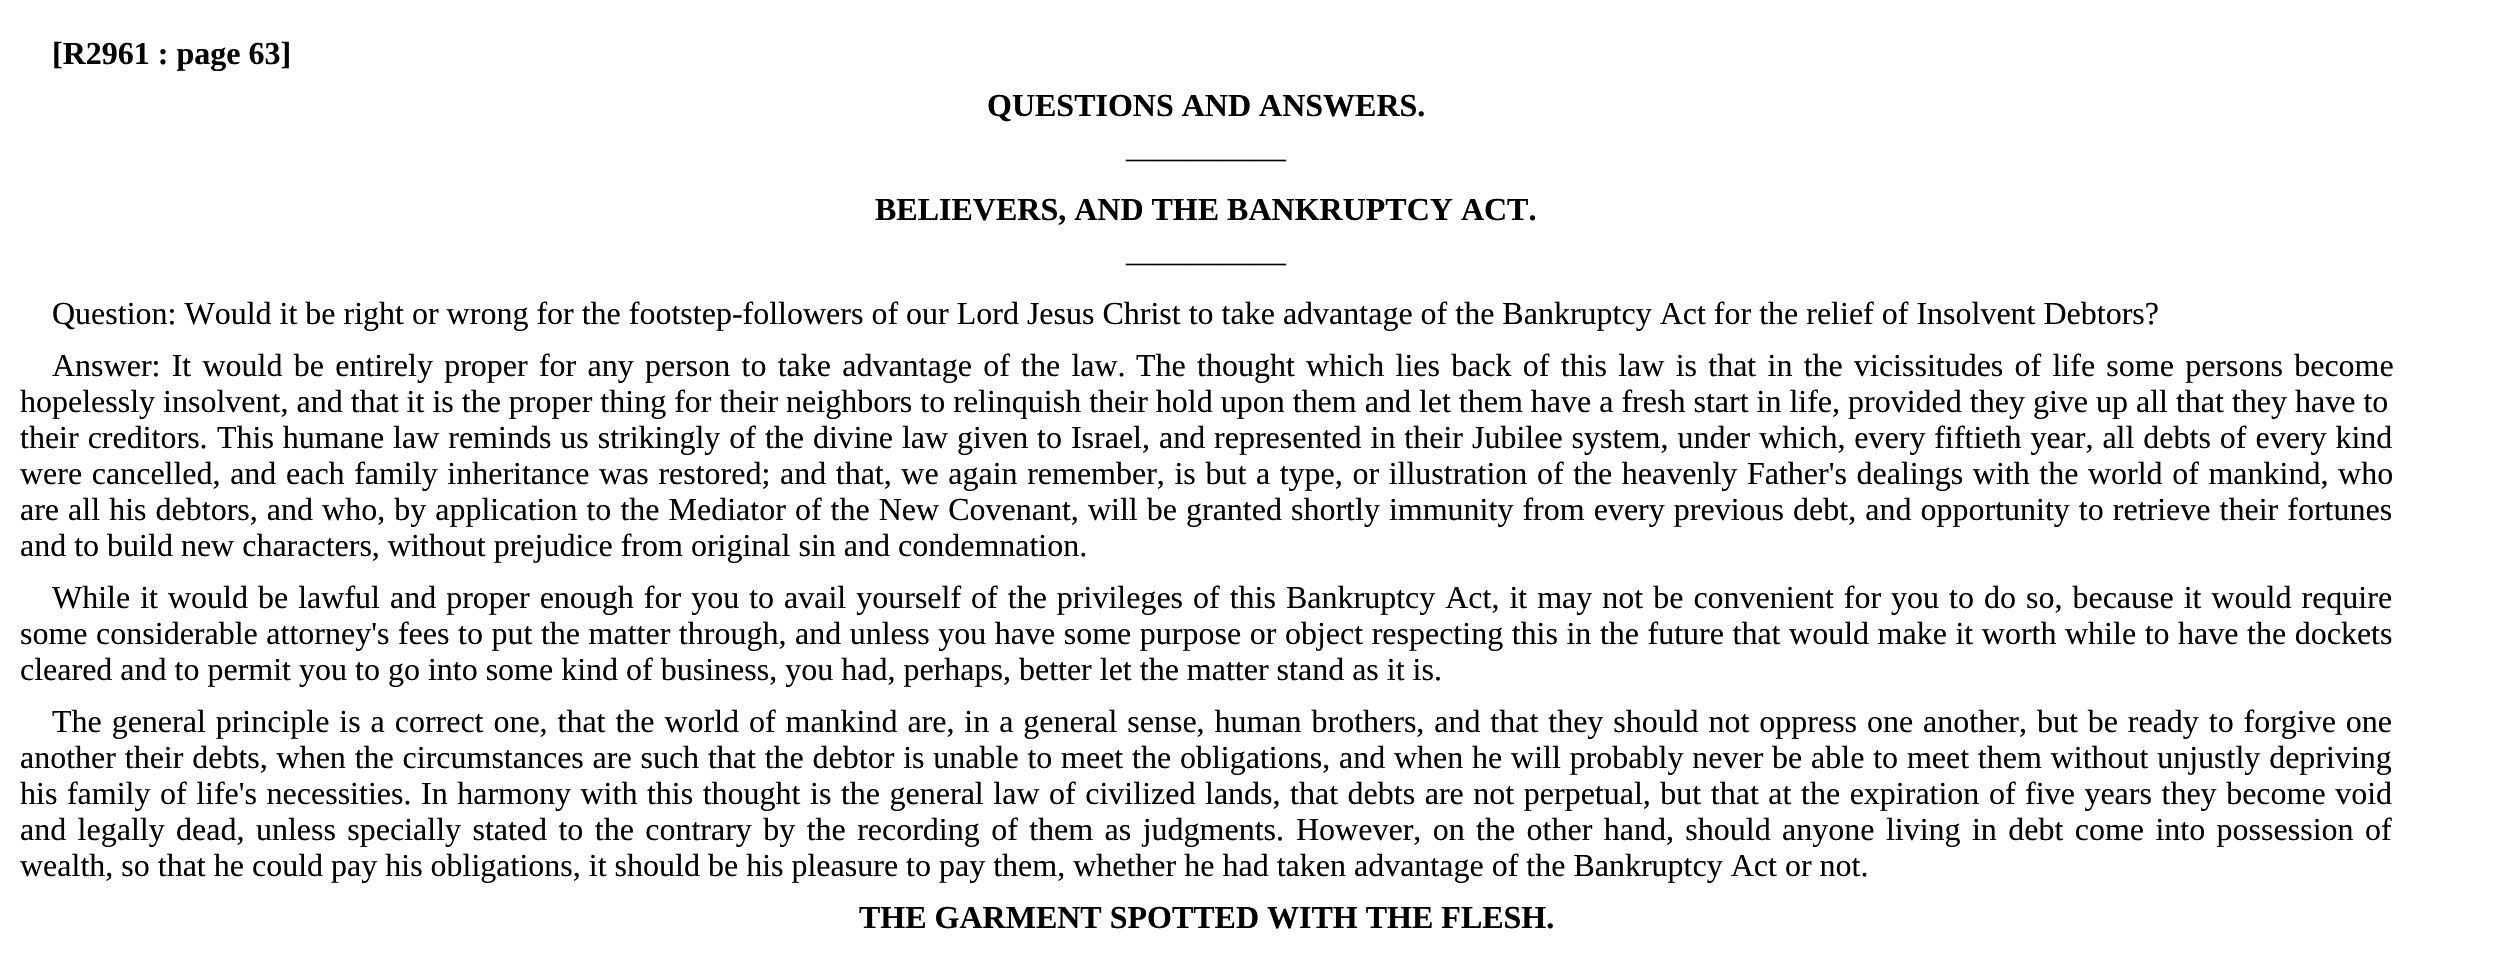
void draw(SkCanvas* canvas) {
    SkPaint paint;
    paint.setAntiAlias(true);
    auto spacedText = [&](const char* s, float x, float y, const SkFont& font, const SkPaint& ink, float letter, float word) {
        std::vector<SkGlyphID> glyphs(font.countText(s, strlen(s), SkTextEncoding::kUTF8));
        std::vector<float> xs(glyphs.size());
        font.textToGlyphs(s, strlen(s), SkTextEncoding::kUTF8, glyphs);
        font.getXPos(glyphs, xs, x);
        float extra = 0;
        for (size_t i = 0; i < glyphs.size(); i++) {
            xs[i] += extra;
            extra += letter + word * (glyphs[i] == font.unicharToGlyph(' '));
        }
        canvas->drawTextBlob(SkTextBlob::MakeFromPosHGlyphs(glyphs, xs, y, font), 0, 0, ink);
    };
    canvas->clear(0xFFFFFFFF);
    SkFont font1(fontMgr->matchFamilyStyle("Liberation Serif", SkFontStyle::Bold()), 32);
    font1.setSubpixel(true);
    paint.setColor(0xFF000000);
    canvas->drawString("[R2961 : page 63]", 52, 64, font1, paint);
    canvas->drawString("QUESTIONS AND ANSWERS.", 987, 116, font1, paint);
    SkFont font2(fontMgr->matchFamilyStyle("Liberation Serif", SkFontStyle::Normal()), 32);
    font2.setSubpixel(true);
    canvas->drawString("—————", 1126, 168, font2, paint);
    canvas->drawString("BELIEVERS, AND THE BANKRUPTCY ACT.", 875, 220, font1, paint);
    canvas->drawString("—————", 1126, 272, font2, paint);
    canvas->drawString("Question: Would it be right or wrong for the footstep-followers of our Lord Jesus Christ to take advantage of the Bankruptcy Act for the relief of Insolvent Debtors?", 52, 324, font2, paint);
    spacedText("Answer: It would be entirely proper for any person to take advantage of the law.", 52, 376, font2, paint, 0, 3.25f);
    spacedText("The thought which lies back of this law is that in the vicissitudes of life some persons become", 1136, 376, font2, paint, 0, 3.25f);
    canvas->drawString("hopelessly insolvent, and that it is the proper thing for their neighbors to relinquish their hold upon them and let them have a fresh start in life, provided they give up all that they have to", 20, 412, font2, paint);
    spacedText("their creditors.", 20, 448, font2, paint, 0, 1);
    spacedText("This humane law reminds us strikingly of the divine law given to Israel, and represented in their Jubilee system, under which, every fiftieth year, all debts of every kind", 217, 448, font2, paint, 0, 0.95f);
    spacedText("were cancelled, and each family inheritance was restored; and that, we again remember, is but a type, or illustration of the heavenly Father's dealings with the world of mankind, who", 20, 484, font2, paint, 0, 1.6f);
    spacedText("are all his debtors, and who, by application to the Mediator of the New Covenant, will be granted shortly immunity from every previous debt, and opportunity to retrieve their fortunes", 20, 520, font2, paint, 0, 1.05f);
    canvas->drawString("and to build new characters, without prejudice from original sin and condemnation.", 20, 556, font2, paint);
    spacedText("While it would be lawful and proper enough for you to avail yourself of the privileges of this Bankruptcy Act, it may not be convenient for you to do so, because it would require", 52, 608, font2, paint, 0, 2);
    spacedText("some considerable attorney's fees to put the matter through, and unless you have some purpose or object respecting this in the future that would make it worth while to have the dockets", 20, 644, font2, paint, 0, 0.55f);
    canvas->drawString("cleared and to permit you to go into some kind of business, you had, perhaps, better let the matter stand as it is.", 20, 680, font2, paint);
    spacedText("The general principle is a correct one, that the world of mankind are, in a general sense, human brothers, and that they should not oppress one another, but be ready to forgive one", 52, 732, font2, paint, 0, 1.9f);
    spacedText("another their debts, when the circumstances are such that the debtor is unable to meet the obligations, and when he will probably never be able to meet them without unjustly depriving", 20, 768, font2, paint, 0, 0.8f);
    spacedText("his family of life's necessities.", 20, 804, font2, paint, 0, 1.55f);
    spacedText("In harmony with this thought is the general law of civilized lands, that debts are not perpetual, but that at the expiration of five years they become void", 421, 804, font2, paint, 0, 1.55f);
    spacedText("and legally dead, unless specially stated to the contrary by the recording of them as judgments.", 20, 840, font2, paint, 0, 3.4f);
    spacedText("However, on the other hand, should anyone living in debt come into possession of", 1296, 840, font2, paint, 0, 3.4f);
    canvas->drawString("wealth, so that he could pay his obligations, it should be his pleasure to pay them, whether he had taken advantage of the Bankruptcy Act or not.", 20, 876, font2, paint);
    canvas->drawString("THE GARMENT SPOTTED WITH THE FLESH.", 859, 928, font1, paint);
}
